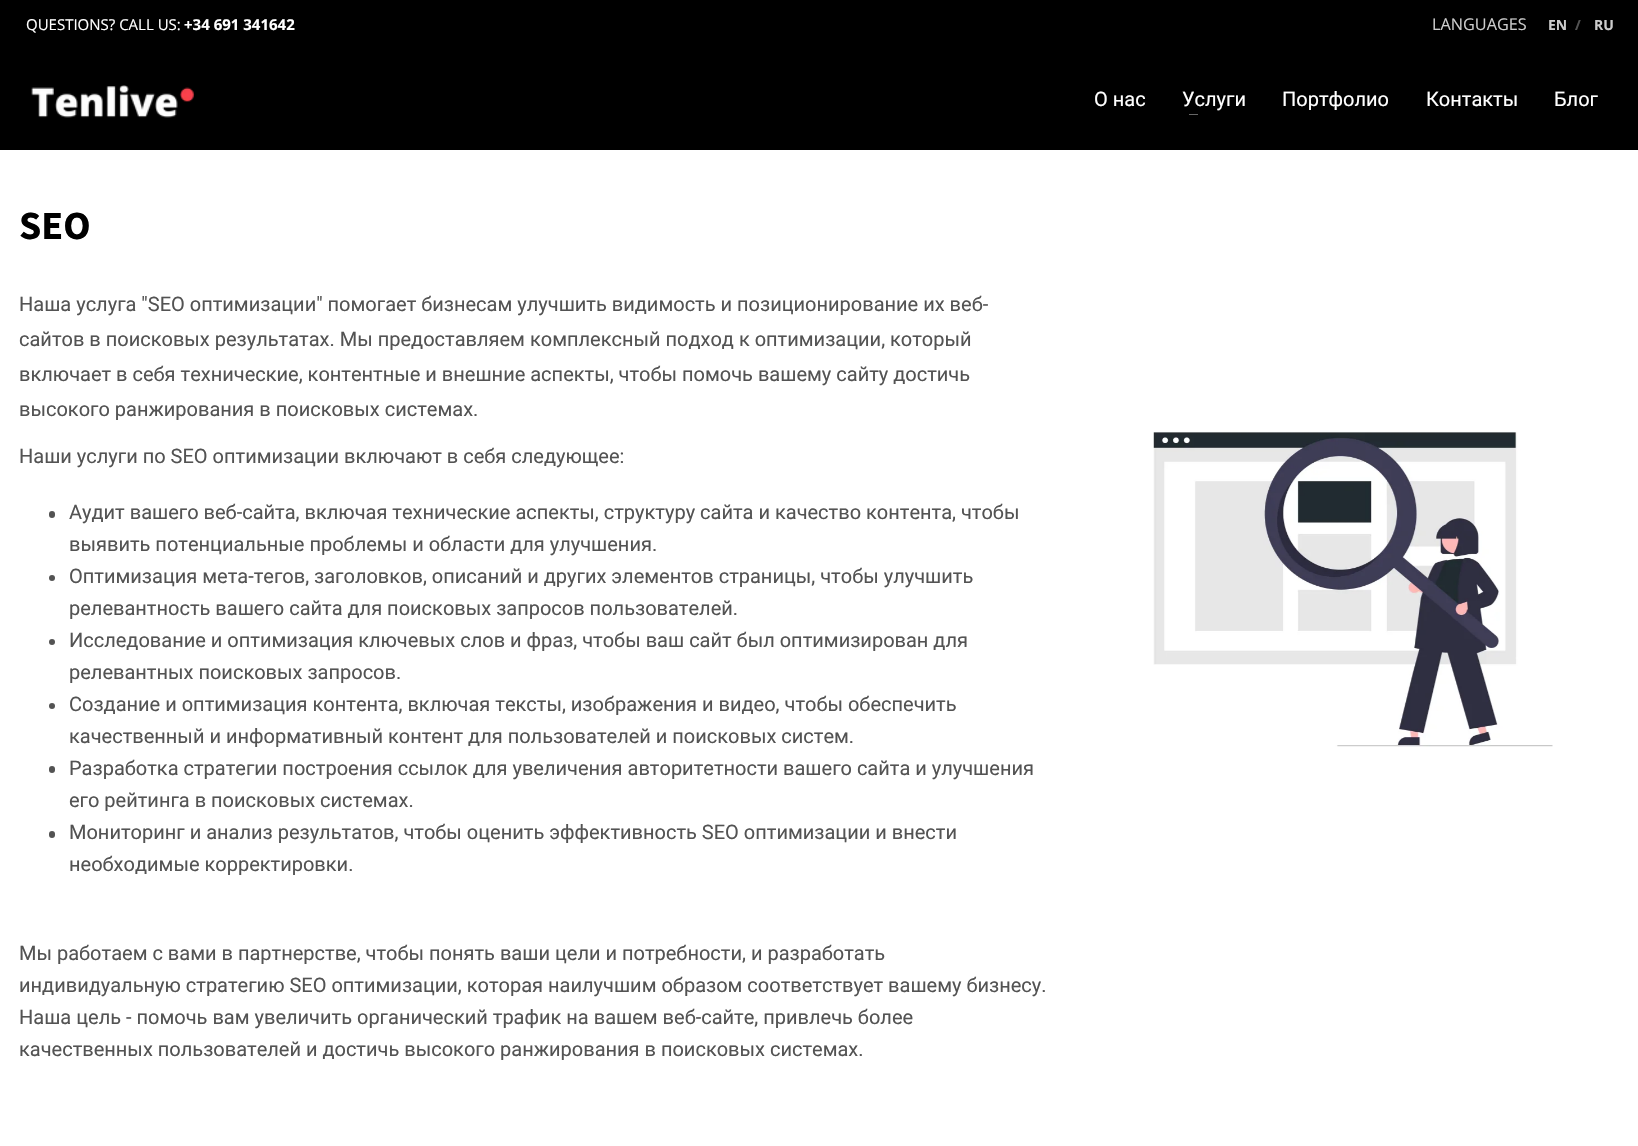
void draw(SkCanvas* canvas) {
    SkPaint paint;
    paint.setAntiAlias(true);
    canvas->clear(0xFFFFFFFF);
    paint.setColor(0xFF000000);
    canvas->drawRect(SkRect::MakeXYWH(0, 0, 1638, 150), paint);
    SkFont font1(fontMgr->matchFamilyStyle("Open Sans", SkFontStyle::Normal()), 15);
    font1.setSubpixel(true);
    paint.setColor(0xFFFFFFFF);
    canvas->drawString("QUESTIONS? CALL US:", 26, 30, font1, paint);
    SkFont font2(fontMgr->matchFamilyStyle("Open Sans", SkFontStyle::Bold()), 15);
    font2.setSubpixel(true);
    canvas->drawString("+34 691 341642", 184, 30, font2, paint);
    SkFont font3(fontMgr->matchFamilyStyle("Open Sans", SkFontStyle::Normal()), 16.25f);
    font3.setSubpixel(true);
    paint.setColor(0xFFCCCCCC);
    canvas->drawString("LANGUAGES", 1432, 30, font3, paint);
    SkFont font4(fontMgr->matchFamilyStyle("Open Sans", SkFontStyle::Bold()), 14);
    font4.setSubpixel(true);
    canvas->drawString("EN", 1548, 30, font4, paint);
    paint.setColor(0xFF535353);
    canvas->drawString("/", 1575, 30, font4, paint);
    paint.setColor(0xFFCCCCCC);
    canvas->drawString("RU", 1594, 30, font4, paint);
    canvas->drawImageRect(SkImages::DeferredFromEncodedData(SkData::MakeFromFileName("img1.png")), SkRect::MakeXYWH(31, 85, 164, 33), SkSamplingOptions());
    SkFont font5(fontMgr->matchFamilyStyle("Roboto", SkFontStyle::Normal()), 20);
    font5.setSubpixel(true);
    paint.setColor(0xFFFFFFFF);
    canvas->drawString("О нас", 1094, 106, font5, paint);
    canvas->drawString("Услуги", 1182, 106, font5, paint);
    paint.setColor(0xFF666666);
    canvas->drawRect(SkRect::MakeXYWH(1189, 114, 9, 1), paint);
    paint.setColor(0xFFFFFFFF);
    canvas->drawString("Портфолио", 1282, 106, font5, paint);
    canvas->drawString("Контакты", 1426, 106, font5, paint);
    canvas->drawString("Блог", 1554, 106, font5, paint);
    SkFont font6(fontMgr->matchFamilyStyle("Source Sans Pro", SkFontStyle::Bold()), 40);
    font6.setSubpixel(true);
    paint.setColor(0xFF000000);
    canvas->drawString("SEO", 19, 239, font6, paint);
    paint.setColor(0xFF535353);
    canvas->drawString("Наша услуга \"SEO оптимизации\" помогает бизнесам улучшить видимость и позиционирование их веб-", 19, 311, font5, paint);
    canvas->drawString("сайтов в поисковых результатах. Мы предоставляем комплексный подход к оптимизации, который", 19, 346, font5, paint);
    canvas->drawString("включает в себя технические, контентные и внешние аспекты, чтобы помочь вашему сайту достичь", 19, 381, font5, paint);
    canvas->drawString("высокого ранжирования в поисковых системах.", 19, 416, font5, paint);
    canvas->drawString("Наши услуги по SEO оптимизации включают в себя следующее:", 19, 463, font5, paint);
    canvas->drawRoundRect(SkRect::MakeXYWH(49, 511, 6, 7), 3, 3, paint);
    canvas->drawString("Аудит вашего веб-сайта, включая технические аспекты, структуру сайта и качество контента, чтобы", 69, 519, font5, paint);
    canvas->drawString("выявить потенциальные проблемы и области для улучшения.", 69, 551, font5, paint);
    canvas->drawCircle(52, 578, 3, paint);
    canvas->drawString("Оптимизация мета-тегов, заголовков, описаний и других элементов страницы, чтобы улучшить", 69, 583, font5, paint);
    canvas->drawString("релевантность вашего сайта для поисковых запросов пользователей.", 69, 615, font5, paint);
    canvas->drawCircle(52, 642, 3, paint);
    canvas->drawString("Исследование и оптимизация ключевых слов и фраз, чтобы ваш сайт был оптимизирован для", 69, 647, font5, paint);
    canvas->drawString("релевантных поисковых запросов.", 69, 679, font5, paint);
    canvas->drawCircle(52, 706, 3, paint);
    canvas->drawString("Создание и оптимизация контента, включая тексты, изображения и видео, чтобы обеспечить", 69, 711, font5, paint);
    canvas->drawString("качественный и информативный контент для пользователей и поисковых систем.", 69, 743, font5, paint);
    canvas->drawRoundRect(SkRect::MakeXYWH(49, 766, 6, 7), 3, 3, paint);
    canvas->drawString("Разработка стратегии построения ссылок для увеличения авторитетности вашего сайта и улучшения", 69, 775, font5, paint);
    canvas->drawString("его рейтинга в поисковых системах.", 69, 807, font5, paint);
    canvas->drawRoundRect(SkRect::MakeXYWH(49, 831, 6, 7), 3, 3, paint);
    canvas->drawString("Мониторинг и анализ результатов, чтобы оценить эффективность SEO оптимизации и внести", 69, 839, font5, paint);
    canvas->drawString("необходимые корректировки.", 69, 871, font5, paint);
    canvas->drawString("Мы работаем с вами в партнерстве, чтобы понять ваши цели и потребности, и разработать", 19, 960, font5, paint);
    canvas->drawString("индивидуальную стратегию SEO оптимизации, которая наилучшим образом соответствует вашему бизнесу.", 19, 992, font5, paint);
    canvas->drawString("Наша цель - помочь вам увеличить органический трафик на вашем веб-сайте, привлечь более", 19, 1024, font5, paint);
    canvas->drawString("качественных пользователей и достичь высокого ранжирования в поисковых системах.", 19, 1056, font5, paint);
    canvas->drawImageRect(SkImages::DeferredFromEncodedData(SkData::MakeFromFileName("img2.png")), SkRect::MakeXYWH(1153, 431, 400, 316), SkSamplingOptions());
}
